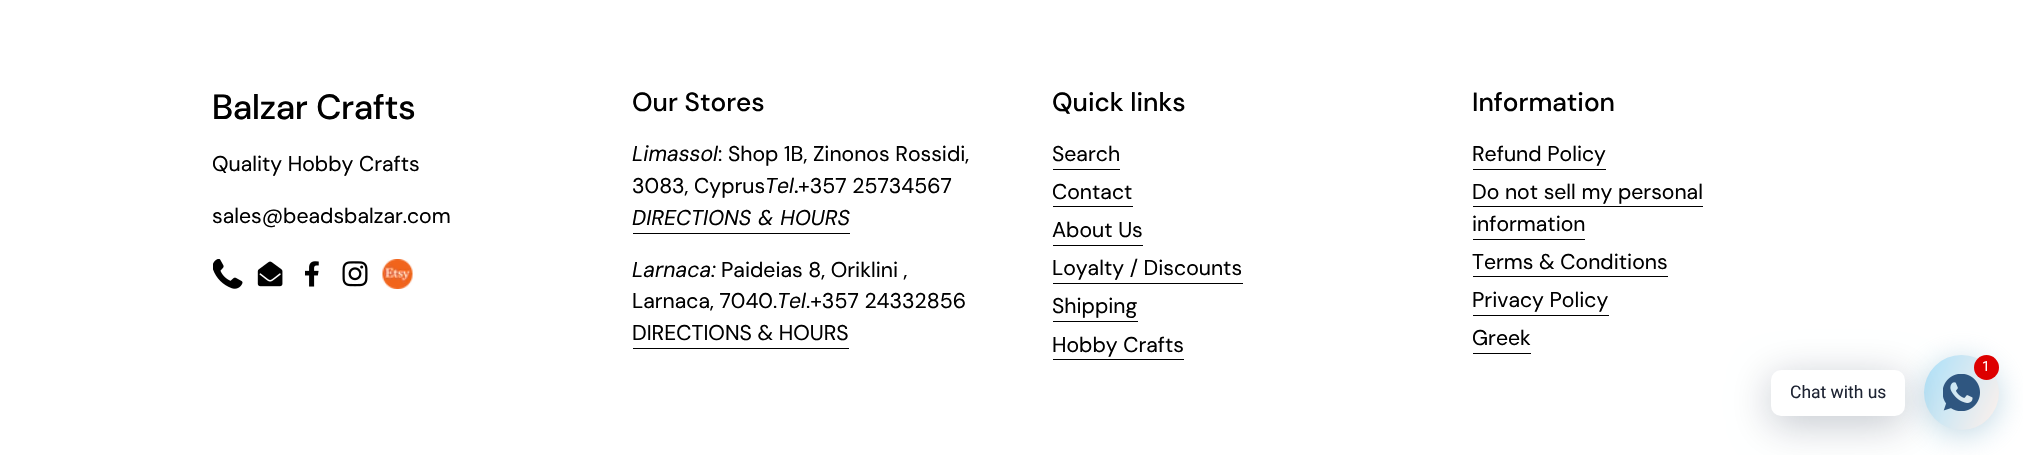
void draw(SkCanvas* canvas) {
    SkPaint paint;
    paint.setAntiAlias(true);
    auto spacedText = [&](const char* s, float x, float y, const SkFont& font, const SkPaint& ink, float letter, float word) {
        std::vector<SkGlyphID> glyphs(font.countText(s, strlen(s), SkTextEncoding::kUTF8));
        std::vector<float> xs(glyphs.size());
        font.textToGlyphs(s, strlen(s), SkTextEncoding::kUTF8, glyphs);
        font.getXPos(glyphs, xs, x);
        float extra = 0;
        for (size_t i = 0; i < glyphs.size(); i++) {
            xs[i] += extra;
            extra += letter + word * (glyphs[i] == font.unicharToGlyph(' '));
        }
        canvas->drawTextBlob(SkTextBlob::MakeFromPosHGlyphs(glyphs, xs, y, font), 0, 0, ink);
    };
    canvas->clear(0xFFFFFFFF);
    SkFont font1(fontMgr->matchFamilyStyle("DM Sans", SkFontStyle(500, SkFontStyle::kNormal_Width, SkFontStyle::kUpright_Slant)), 35);
    font1.setSubpixel(true);
    paint.setColor(0xFF000000);
    canvas->drawString("Balzar Crafts", 212, 119, font1, paint);
    SkFont font2(fontMgr->matchFamilyStyle("DM Sans", SkFontStyle::Normal()), 21.25f);
    font2.setSubpixel(true);
    canvas->drawString("Quality Hobby Crafts", 212, 171, font2, paint);
    canvas->drawString("sales@beadsbalzar.com", 212, 223, font2, paint);
    canvas->drawImageRect(SkImages::DeferredFromEncodedData(SkData::MakeFromFileName("img1.png")), SkRect::MakeXYWH(213, 259, 30, 30), SkSamplingOptions());
    canvas->drawImageRect(SkImages::DeferredFromEncodedData(SkData::MakeFromFileName("img2.png")), SkRect::MakeXYWH(257, 261, 26, 26), SkSamplingOptions());
    canvas->drawImageRect(SkImages::DeferredFromEncodedData(SkData::MakeFromFileName("img3.png")), SkRect::MakeXYWH(305, 261, 14, 26), SkSamplingOptions());
    canvas->drawImageRect(SkImages::DeferredFromEncodedData(SkData::MakeFromFileName("img4.png")), SkRect::MakeXYWH(342, 261, 26, 26), SkSamplingOptions());
    canvas->drawImageRect(SkImages::DeferredFromEncodedData(SkData::MakeFromFileName("img5.png")), SkRect::MakeXYWH(382, 259, 31, 30), SkSamplingOptions());
    SkFont font3(fontMgr->matchFamilyStyle("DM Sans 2", SkFontStyle(500, SkFontStyle::kNormal_Width, SkFontStyle::kUpright_Slant)), 26.25f);
    font3.setSubpixel(true);
    canvas->drawString("Our Stores", 632, 111, font3, paint);
    SkFont font4(fontMgr->matchFamilyStyle("DM Sans", SkFontStyle::Italic()), 21.25f);
    font4.setSubpixel(true);
    canvas->drawString("Limassol", 632, 161, font4, paint);
    canvas->drawString(": Shop 1B, Zinonos Rossidi,", 718, 161, font2, paint);
    canvas->drawString("3083, Cyprus", 632, 193, font2, paint);
    canvas->drawString("Tel", 765, 193, font4, paint);
    SkFont font5(fontMgr->matchFamilyStyle("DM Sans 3", SkFontStyle(500, SkFontStyle::kNormal_Width, SkFontStyle::kUpright_Slant)), 21.25f);
    font5.setSubpixel(true);
    canvas->drawString(".", 794, 193, font5, paint);
    canvas->drawString("+357 25734567", 798, 193, font2, paint);
    spacedText("DIRECTIONS & HOURS", 632, 225, font4, paint, 0, 1);
    canvas->drawRect(SkRect::MakeXYWH(633, 233, 217, 1), paint);
    canvas->drawString("Larnaca:", 632, 277, font4, paint);
    canvas->drawString("Paideias 8, Oriklini ,", 721, 277, font2, paint);
    canvas->drawString("Larnaca, 7040.", 632, 308, font2, paint);
    canvas->drawString("Tel", 777, 308, font4, paint);
    canvas->drawString(".+357 24332856", 806, 308, font2, paint);
    canvas->drawString("DIRECTIONS & HOURS", 632, 340, font2, paint);
    canvas->drawRect(SkRect::MakeXYWH(633, 348, 216, 1), paint);
    canvas->drawString("Quick links", 1052, 111, font3, paint);
    canvas->drawString("Search", 1052, 161, font2, paint);
    canvas->drawRect(SkRect::MakeXYWH(1053, 169, 67, 1), paint);
    canvas->drawString("Contact", 1052, 199, font2, paint);
    canvas->drawRect(SkRect::MakeXYWH(1053, 206, 80, 1), paint);
    canvas->drawString("About Us", 1052, 237, font2, paint);
    canvas->drawRect(SkRect::MakeXYWH(1053, 245, 90, 1), paint);
    canvas->drawString("Loyalty / Discounts", 1052, 275, font2, paint);
    canvas->drawRect(SkRect::MakeXYWH(1053, 283, 190, 1), paint);
    canvas->drawString("Shipping", 1052, 313, font2, paint);
    canvas->drawRect(SkRect::MakeXYWH(1053, 321, 85, 1), paint);
    canvas->drawString("Hobby Crafts", 1052, 352, font2, paint);
    canvas->drawRect(SkRect::MakeXYWH(1053, 359, 131, 1), paint);
    canvas->drawString("Information", 1472, 111, font3, paint);
    canvas->drawString("Refund Policy", 1472, 161, font2, paint);
    canvas->drawRect(SkRect::MakeXYWH(1473, 169, 133, 1), paint);
    canvas->drawString("Do not sell my personal", 1472, 199, font2, paint);
    canvas->drawRect(SkRect::MakeXYWH(1473, 206, 230, 1), paint);
    canvas->drawString("information", 1472, 231, font2, paint);
    canvas->drawRect(SkRect::MakeXYWH(1473, 239, 112, 1), paint);
    canvas->drawString("Terms & Conditions", 1472, 269, font2, paint);
    canvas->drawRect(SkRect::MakeXYWH(1473, 276, 195, 1), paint);
    canvas->drawString("Privacy Policy", 1472, 307, font2, paint);
    canvas->drawRect(SkRect::MakeXYWH(1473, 315, 136, 1), paint);
    canvas->drawString("Greek", 1472, 345, font2, paint);
    canvas->drawRect(SkRect::MakeXYWH(1473, 353, 58, 1), paint);
    paint.setColor(0x8082B2C9);
    paint.setMaskFilter(SkMaskFilter::MakeBlur(kNormal_SkBlurStyle, 15));
    canvas->drawRoundRect(SkRect::MakeXYWH(1924, 360, 75, 75), 37.5f, 37.5f, paint);
    paint.setMaskFilter(nullptr);
    {
        const SkColor colors[] = {0xFFACE0F9, 0xFFFFF1EB};
        const float stops[] = {0, 1};
        const SkPoint ends[] = {{1916, 371}, {2006, 414}};
        paint.setShader(SkGradientShader::MakeLinear(ends, colors, stops, 2, SkTileMode::kClamp));
        paint.setAlpha(255);
    }
    canvas->drawCircle(1961.5f, 392.5f, 37.5f, paint);
    paint.setShader(nullptr);
    paint.setColor(0x3D00122E);
    paint.setMaskFilter(SkMaskFilter::MakeBlur(kNormal_SkBlurStyle, 20));
    canvas->drawRoundRect(SkRect::MakeXYWH(1771, 378, 134, 46), 10, 10, paint);
    paint.setMaskFilter(nullptr);
    canvas->drawImageRect(SkImages::DeferredFromEncodedData(SkData::MakeFromFileName("img6.png")), SkRect::MakeXYWH(1943, 374, 37, 37), SkSamplingOptions());
    paint.setColor(0xFFDD0000);
    canvas->drawCircle(1986.5f, 367.5f, 12.5f, paint);
    SkFont font6(fontMgr->matchFamilyStyle("Roboto", SkFontStyle::Normal()), 14);
    font6.setSubpixel(true);
    paint.setColor(0xFFFFFFFF);
    canvas->drawString("1", 1982, 371, font6, paint);
    canvas->drawRoundRect(SkRect::MakeXYWH(1771, 370, 134, 46), 10, 10, paint);
    SkFont font7(fontMgr->matchFamilyStyle("Roboto", SkFontStyle::Normal()), 17.5f);
    font7.setSubpixel(true);
    paint.setColor(0xFF1E2433);
    canvas->drawString("Chat with us", 1790, 398, font7, paint);
}
